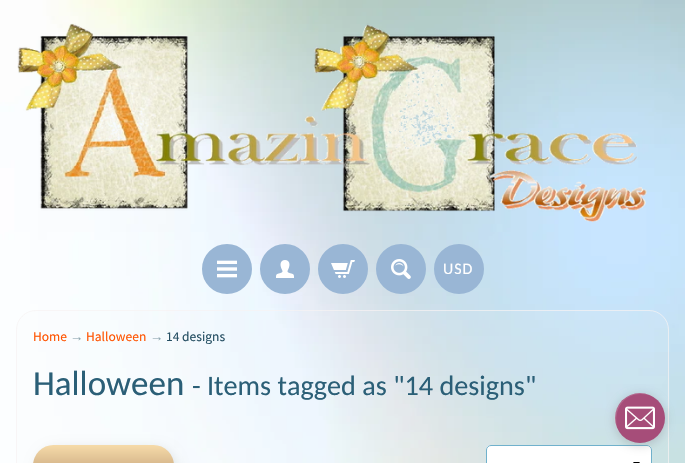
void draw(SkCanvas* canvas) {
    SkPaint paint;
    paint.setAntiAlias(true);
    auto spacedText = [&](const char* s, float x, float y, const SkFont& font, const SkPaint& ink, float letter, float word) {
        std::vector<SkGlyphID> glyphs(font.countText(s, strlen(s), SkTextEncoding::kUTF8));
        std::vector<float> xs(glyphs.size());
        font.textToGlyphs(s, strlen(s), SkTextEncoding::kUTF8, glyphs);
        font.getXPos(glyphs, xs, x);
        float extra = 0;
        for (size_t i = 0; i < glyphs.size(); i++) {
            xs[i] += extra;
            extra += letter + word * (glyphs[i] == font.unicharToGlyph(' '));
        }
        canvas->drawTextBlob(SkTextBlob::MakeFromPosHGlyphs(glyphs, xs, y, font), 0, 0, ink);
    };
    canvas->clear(0xFFFFFFFF);
    canvas->drawImageRect(SkImages::DeferredFromEncodedData(SkData::MakeFromFileName("img1.png")), SkRect::MakeXYWH(0, 0, 685, 463), SkSamplingOptions());
    canvas->drawImageRect(SkImages::DeferredFromEncodedData(SkData::MakeFromFileName("img2.png")), SkRect::MakeXYWH(17, 23, 630, 199), SkSamplingOptions());
    paint.setColor(0xFF99B6D5);
    canvas->drawCircle(227, 269, 23.5f, paint);
    paint.setStyle(SkPaint::kStroke_Style);
    paint.setStrokeWidth(3);
    canvas->drawCircle(227, 269, 23.5f, paint);
    canvas->drawImageRect(SkImages::DeferredFromEncodedData(SkData::MakeFromFileName("img3.png")), SkRect::MakeXYWH(217, 260, 20, 18), SkSamplingOptions());
    paint.setStyle(SkPaint::kFill_Style);
    canvas->drawCircle(285, 269, 23.5f, paint);
    paint.setStyle(SkPaint::kStroke_Style);
    canvas->drawCircle(285, 269, 23.5f, paint);
    canvas->drawImageRect(SkImages::DeferredFromEncodedData(SkData::MakeFromFileName("img4.png")), SkRect::MakeXYWH(276, 260, 18, 18), SkSamplingOptions());
    paint.setStyle(SkPaint::kFill_Style);
    canvas->drawCircle(343, 269, 23.5f, paint);
    paint.setStyle(SkPaint::kStroke_Style);
    canvas->drawCircle(343, 269, 23.5f, paint);
    canvas->drawImageRect(SkImages::DeferredFromEncodedData(SkData::MakeFromFileName("img5.png")), SkRect::MakeXYWH(331, 260, 24, 18), SkSamplingOptions());
    paint.setStyle(SkPaint::kFill_Style);
    canvas->drawCircle(401, 269, 23.5f, paint);
    paint.setStyle(SkPaint::kStroke_Style);
    canvas->drawCircle(401, 269, 23.5f, paint);
    canvas->drawImageRect(SkImages::DeferredFromEncodedData(SkData::MakeFromFileName("img6.png")), SkRect::MakeXYWH(391, 259, 20, 20), SkSamplingOptions());
    paint.setStyle(SkPaint::kFill_Style);
    canvas->drawCircle(459, 269, 23.5f, paint);
    paint.setStyle(SkPaint::kStroke_Style);
    canvas->drawCircle(459, 269, 23.5f, paint);
    SkFont font1(fontMgr->matchFamilyStyle("Carlito", SkFontStyle::Normal()), 16);
    font1.setSubpixel(true);
    paint.setStyle(SkPaint::kFill_Style);
    paint.setColor(0xFFFFFFFF);
    spacedText("USD", 443, 274, font1, paint, 1, 0);
    paint.setColor(0x1AF6F2F2);
    canvas->drawRoundRect(SkRect::MakeXYWH(16, 310, 653, 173), 20, 20, paint);
    paint.setStyle(SkPaint::kStroke_Style);
    paint.setStrokeWidth(1);
    paint.setColor(0xB3F6F2F2);
    canvas->drawRoundRect(SkRect::MakeXYWH(16.5f, 310.5f, 652, 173), 19.5f, 19.5f, paint);
    SkFont font2(fontMgr->matchFamilyStyle("Source Sans Pro", SkFontStyle::Normal()), 13.5f);
    font2.setSubpixel(true);
    paint.setStyle(SkPaint::kFill_Style);
    paint.setColor(0xFFFF5300);
    canvas->drawString("Home", 33, 341, font2, paint);
    SkFont font3(fontMgr->matchFamilyStyle("Liberation Sans", SkFontStyle::Normal()), 13.5f);
    font3.setSubpixel(true);
    paint.setColor(0xFF8EA5AF);
    canvas->drawString("→", 70, 341, font3, paint);
    paint.setColor(0xFFFF5300);
    canvas->drawString("Halloween", 86, 341, font2, paint);
    paint.setColor(0xFF8EA5AF);
    canvas->drawString("→", 150, 341, font3, paint);
    paint.setColor(0xFF234D61);
    canvas->drawString("14 designs", 166, 341, font2, paint);
    SkFont font4(fontMgr->matchFamilyStyle("Carlito", SkFontStyle::Normal()), 35);
    font4.setSubpixel(true);
    paint.setColor(0xFF2B5F77);
    canvas->drawString("Halloween", 33, 395, font4, paint);
    SkFont font5(fontMgr->matchFamilyStyle("Carlito", SkFontStyle::Normal()), 28.2f);
    font5.setSubpixel(true);
    canvas->drawString("- Items tagged as \"14 designs\"", 192, 395, font5, paint);
    paint.setColor(0x1A000000);
    paint.setMaskFilter(SkMaskFilter::MakeBlur(kNormal_SkBlurStyle, 6));
    canvas->drawRoundRect(SkRect::MakeXYWH(36, 448, 141, 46), 23, 23, paint);
    paint.setMaskFilter(nullptr);
    {
        const SkColor colors[] = {0xFFF6DBA9, 0xFFAF8967};
        const float stops[] = {0, 1};
        const SkPoint ends[] = {{104, 445}, {104, 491}};
        paint.setShader(SkGradientShader::MakeLinear(ends, colors, stops, 2, SkTileMode::kClamp));
        paint.setAlpha(255);
    }
    canvas->drawRoundRect(SkRect::MakeXYWH(33, 445, 141, 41), 23, 23, paint);
    paint.setShader(nullptr);
    paint.setColor(0xFFFFFFFF);
    canvas->drawRoundRect(SkRect::MakeXYWH(486, 445, 166, 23), 5, 5, paint);
    paint.setColor(0xFF000000);
    canvas->drawPath(SkPathBuilder().moveTo(633, 462).cubicTo(637.5f, 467.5f, 635.5f, 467.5f, 640, 462).close().detach(), paint);
    paint.setStyle(SkPaint::kStroke_Style);
    paint.setColor(0xFF70B1CC);
    canvas->drawRoundRect(SkRect::MakeXYWH(486.5f, 445.5f, 165, 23), 4.5f, 4.5f, paint);
    paint.setStyle(SkPaint::kFill_Style);
    paint.setColor(0x66808080);
    paint.setMaskFilter(SkMaskFilter::MakeBlur(kNormal_SkBlurStyle, 5.5f));
    canvas->drawRoundRect(SkRect::MakeXYWH(615, 395, 50, 50), 25, 25, paint);
    paint.setMaskFilter(nullptr);
    paint.setColor(0xFFA64D79);
    canvas->drawCircle(640, 418, 25, paint);
    paint.setColor(0x26FFFFFF);
    canvas->drawPath(SkPathBuilder().moveTo(641, 394).cubicTo(646, 394, 650, 395, 654, 397).cubicTo(630, 382, 603, 412, 620, 434).cubicTo(611, 419, 618, 394, 641, 394).close().detach(), paint);
    canvas->drawImageRect(SkImages::DeferredFromEncodedData(SkData::MakeFromFileName("img7.png")), SkRect::MakeXYWH(625, 406, 30, 24), SkSamplingOptions());
}
